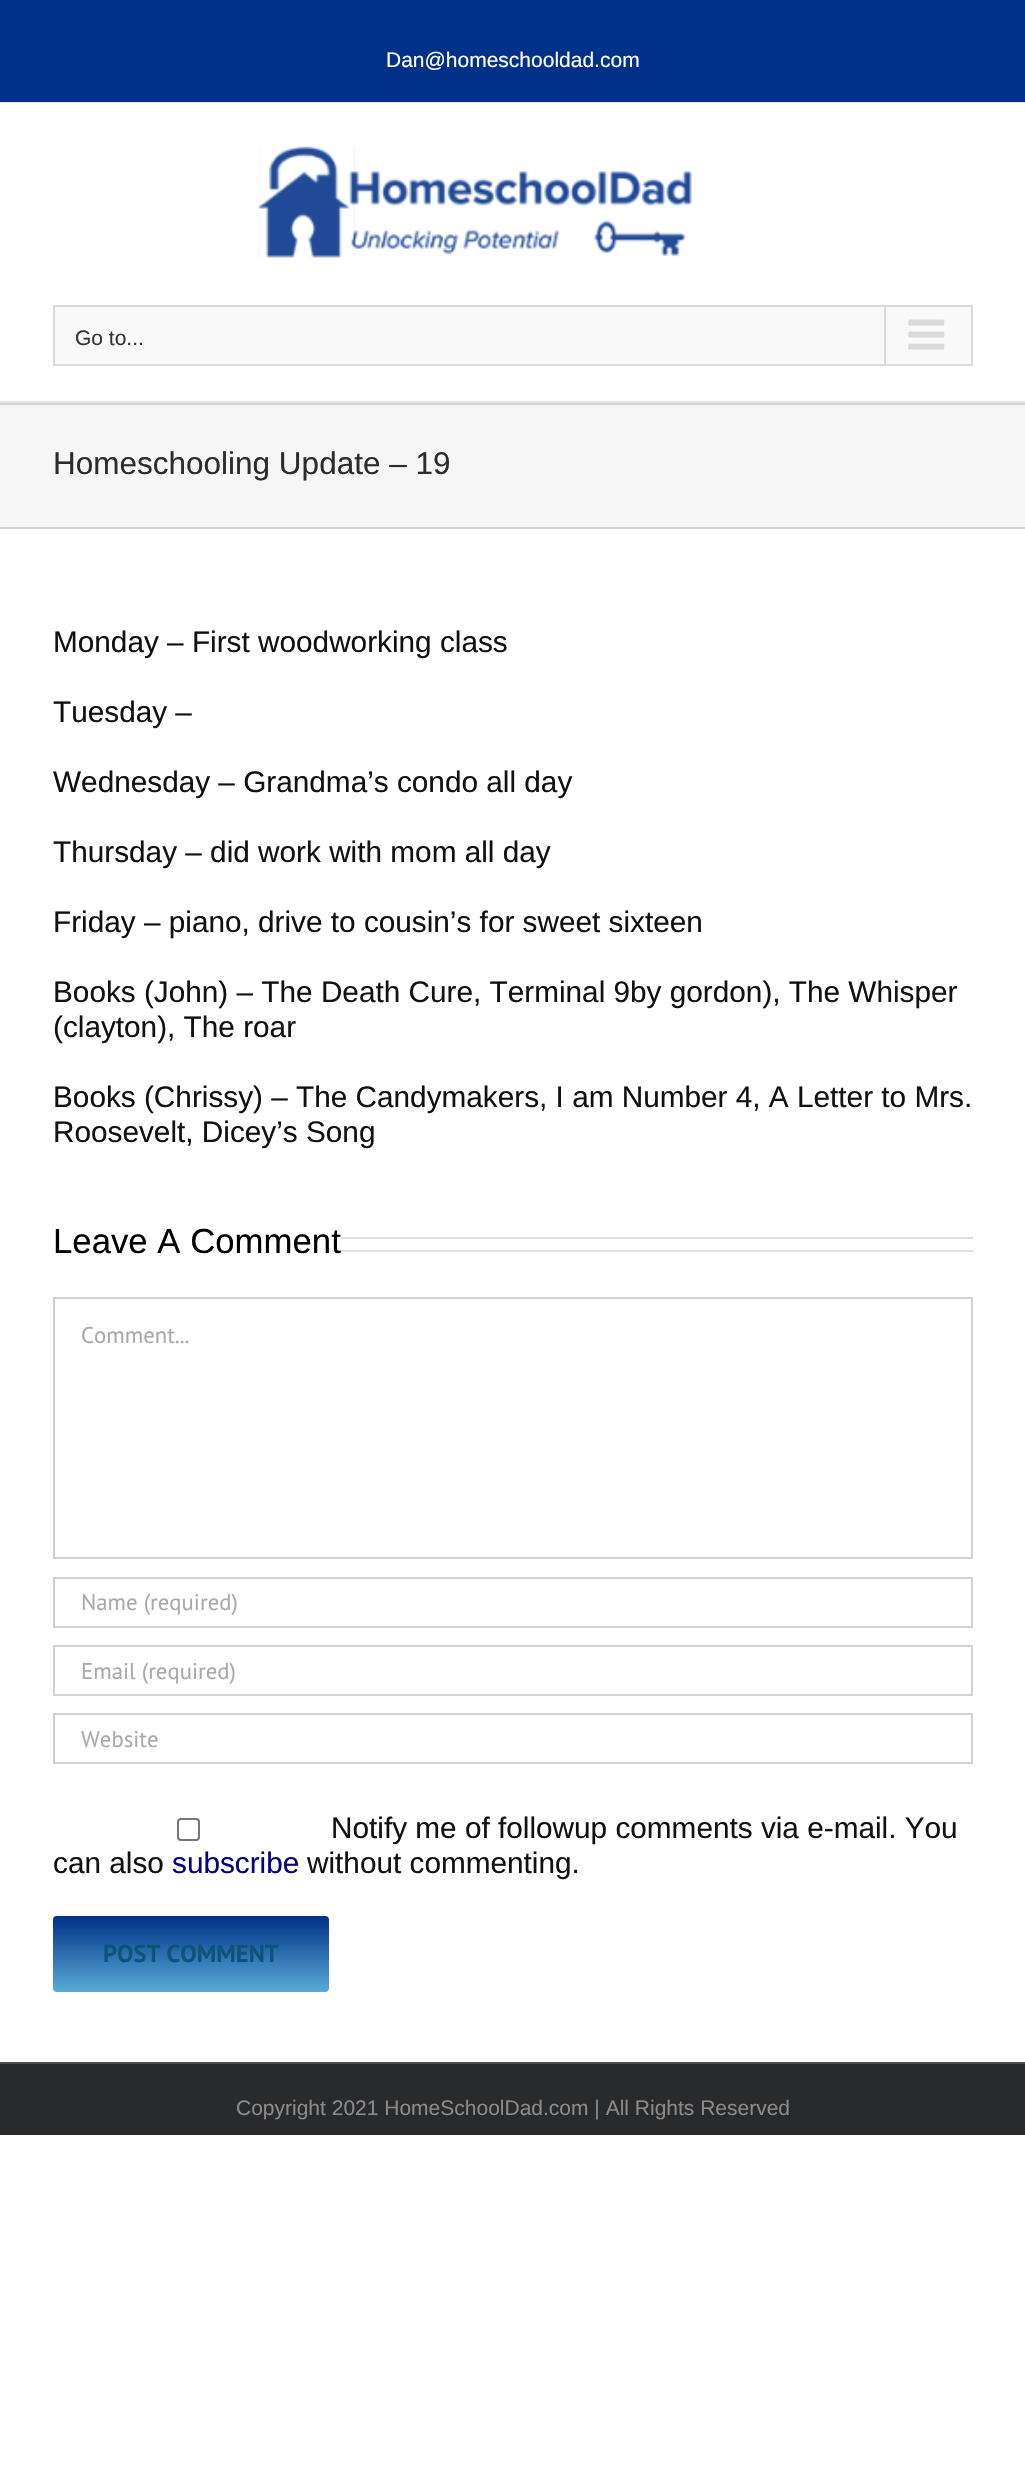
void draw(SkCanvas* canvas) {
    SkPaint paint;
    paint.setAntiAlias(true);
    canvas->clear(0xFFFFFFFF);
    paint.setColor(0xFF013088);
    canvas->drawRect(SkRect::MakeXYWH(0, 0, 1025, 102), paint);
    paint.setColor(0xFFE5E5E5);
    canvas->drawRect(SkRect::MakeXYWH(0, 102, 1025, 1), paint);
    SkFont font1(fontMgr->matchFamilyStyle("Liberation Sans", SkFontStyle::Normal()), 21);
    font1.setSubpixel(true);
    paint.setColor(0xFFFFFFFF);
    canvas->drawString("Dan@homeschooldad.com", 386, 67, font1, paint);
    paint.setColor(0xFFE5E5E5);
    canvas->drawRect(SkRect::MakeXYWH(0, 401, 1025, 2), paint);
    canvas->drawImageRect(SkImages::DeferredFromEncodedData(SkData::MakeFromFileName("img1.png")), SkRect::MakeXYWH(257, 146, 435, 112), SkSamplingOptions());
    paint.setColor(0xFFF9F9F9);
    canvas->drawRect(SkRect::MakeXYWH(54, 306, 918, 59), paint);
    paint.setStyle(SkPaint::kStroke_Style);
    paint.setStrokeWidth(2);
    paint.setColor(0xFFDADADA);
    canvas->drawRect(SkRect::MakeXYWH(54, 306, 918, 59), paint);
    paint.setStyle(SkPaint::kFill_Style);
    paint.setColor(0xFF333333);
    canvas->drawString("Go to...", 75, 345, font1, paint);
    paint.setColor(0xFFDADADA);
    canvas->drawRect(SkRect::MakeXYWH(884, 306, 2, 58), paint);
    canvas->drawImageRect(SkImages::DeferredFromEncodedData(SkData::MakeFromFileName("img2.png")), SkRect::MakeXYWH(908, 319, 37, 31), SkSamplingOptions());
    paint.setColor(0xFFF6F6F6);
    canvas->drawRect(SkRect::MakeXYWH(0, 405, 1025, 122), paint);
    paint.setColor(0xFFD2D3D4);
    canvas->drawRect(SkRect::MakeXYWH(0, 403, 1025, 2), paint);
    canvas->drawRect(SkRect::MakeXYWH(0, 527, 1025, 2), paint);
    SkFont font2(fontMgr->matchFamilyStyle("Liberation Sans", SkFontStyle::Normal()), 31.5f);
    font2.setSubpixel(true);
    paint.setColor(0xFF2D2C2A);
    canvas->drawString("Homeschooling Update – 19", 53, 474, font2, paint);
    SkFont font3(fontMgr->matchFamilyStyle("Liberation Sans", SkFontStyle::Normal()), 29.75f);
    font3.setSubpixel(true);
    paint.setColor(0xFF111111);
    canvas->drawString("Monday – First woodworking class", 53, 652, font3, paint);
    canvas->drawString("Tuesday –", 53, 722, font3, paint);
    canvas->drawString("Wednesday – Grandma’s condo all day", 53, 792, font3, paint);
    canvas->drawString("Thursday – did work with mom all day", 53, 862, font3, paint);
    canvas->drawString("Friday – piano, drive to cousin’s for sweet sixteen", 53, 932, font3, paint);
    canvas->drawString("Books (John) – The Death Cure, Terminal 9by gordon), The Whisper", 53, 1002, font3, paint);
    canvas->drawString("(clayton), The roar", 53, 1037, font3, paint);
    canvas->drawString("Books (Chrissy) – The Candymakers, I am Number 4, A Letter to Mrs.", 53, 1107, font3, paint);
    canvas->drawString("Roosevelt, Dicey’s Song", 53, 1142, font3, paint);
    SkFont font4(fontMgr->matchFamilyStyle("Liberation Sans", SkFontStyle::Normal()), 34.75f);
    font4.setSubpixel(true);
    paint.setColor(0xFF000000);
    canvas->drawString("Leave A Comment", 53, 1253, font4, paint);
    paint.setColor(0xFFE0DEDE);
    canvas->drawRect(SkRect::MakeXYWH(341, 1237, 632, 2), paint);
    canvas->drawRect(SkRect::MakeXYWH(341, 1250, 632, 2), paint);
    paint.setStyle(SkPaint::kStroke_Style);
    paint.setColor(0xFFD2D2D2);
    canvas->drawRect(SkRect::MakeXYWH(54, 1298, 918, 260), paint);
    SkFont font5(fontMgr->matchFamilyStyle("PT Sans", SkFontStyle::Normal()), 22.75f);
    font5.setSubpixel(true);
    paint.setStyle(SkPaint::kFill_Style);
    paint.setColor(0xFFAAA9A9);
    canvas->drawString("Comment...", 81, 1343, font5, paint);
    paint.setStyle(SkPaint::kStroke_Style);
    paint.setColor(0xFFD2D2D2);
    canvas->drawRect(SkRect::MakeXYWH(54, 1578, 918, 49), paint);
    paint.setStyle(SkPaint::kFill_Style);
    paint.setColor(0xFFAAA9A9);
    canvas->drawString("Name (required)", 81, 1610, font5, paint);
    paint.setStyle(SkPaint::kStroke_Style);
    paint.setColor(0xFFD2D2D2);
    canvas->drawRect(SkRect::MakeXYWH(54, 1646, 918, 49), paint);
    paint.setStyle(SkPaint::kFill_Style);
    paint.setColor(0xFFAAA9A9);
    canvas->drawString("Email (required)", 81, 1679, font5, paint);
    paint.setStyle(SkPaint::kStroke_Style);
    paint.setColor(0xFFD2D2D2);
    canvas->drawRect(SkRect::MakeXYWH(54, 1714, 918, 49), paint);
    paint.setStyle(SkPaint::kFill_Style);
    paint.setColor(0xFFAAA9A9);
    canvas->drawString("Website", 81, 1747, font5, paint);
    paint.setStyle(SkPaint::kStroke_Style);
    paint.setColor(0xFF767676);
    canvas->drawRoundRect(SkRect::MakeXYWH(178, 1819, 21, 21), 3, 3, paint);
    paint.setStyle(SkPaint::kFill_Style);
    paint.setColor(0xFF111111);
    canvas->drawString("Notify me of followup comments via e-mail. You", 331, 1838, font3, paint);
    canvas->drawString("can also", 53, 1873, font3, paint);
    paint.setColor(0xFF0B0080);
    canvas->drawString("subscribe", 172, 1873, font3, paint);
    paint.setColor(0xFF111111);
    canvas->drawString("without commenting.", 307, 1873, font3, paint);
    {
        const SkColor colors[] = {0xFF5AABD6, 0xFF013088};
        const float stops[] = {0, 1};
        const SkPoint ends[] = {{191, 1992}, {191, 1916}};
        paint.setShader(SkGradientShader::MakeLinear(ends, colors, stops, 2, SkTileMode::kClamp));
        paint.setAlpha(255);
    }
    canvas->drawRoundRect(SkRect::MakeXYWH(53, 1916, 276, 76), 4, 4, paint);
    SkFont font6(fontMgr->matchFamilyStyle("PT Sans", SkFontStyle::Bold()), 24.5f);
    font6.setSubpixel(true);
    paint.setShader(nullptr);
    paint.setColor(0xFF105378);
    canvas->drawString("POST COMMENT", 103, 1962, font6, paint);
    paint.setColor(0xFF282A2B);
    canvas->drawRect(SkRect::MakeXYWH(0, 2064, 1025, 71), paint);
    paint.setColor(0xFF4B4C4D);
    canvas->drawRect(SkRect::MakeXYWH(0, 2062, 1025, 2), paint);
    paint.setColor(0xFF8C8989);
    canvas->drawString("Copyright 2021 HomeSchoolDad.com | All Rights Reserved", 236, 2115, font1, paint);
}
